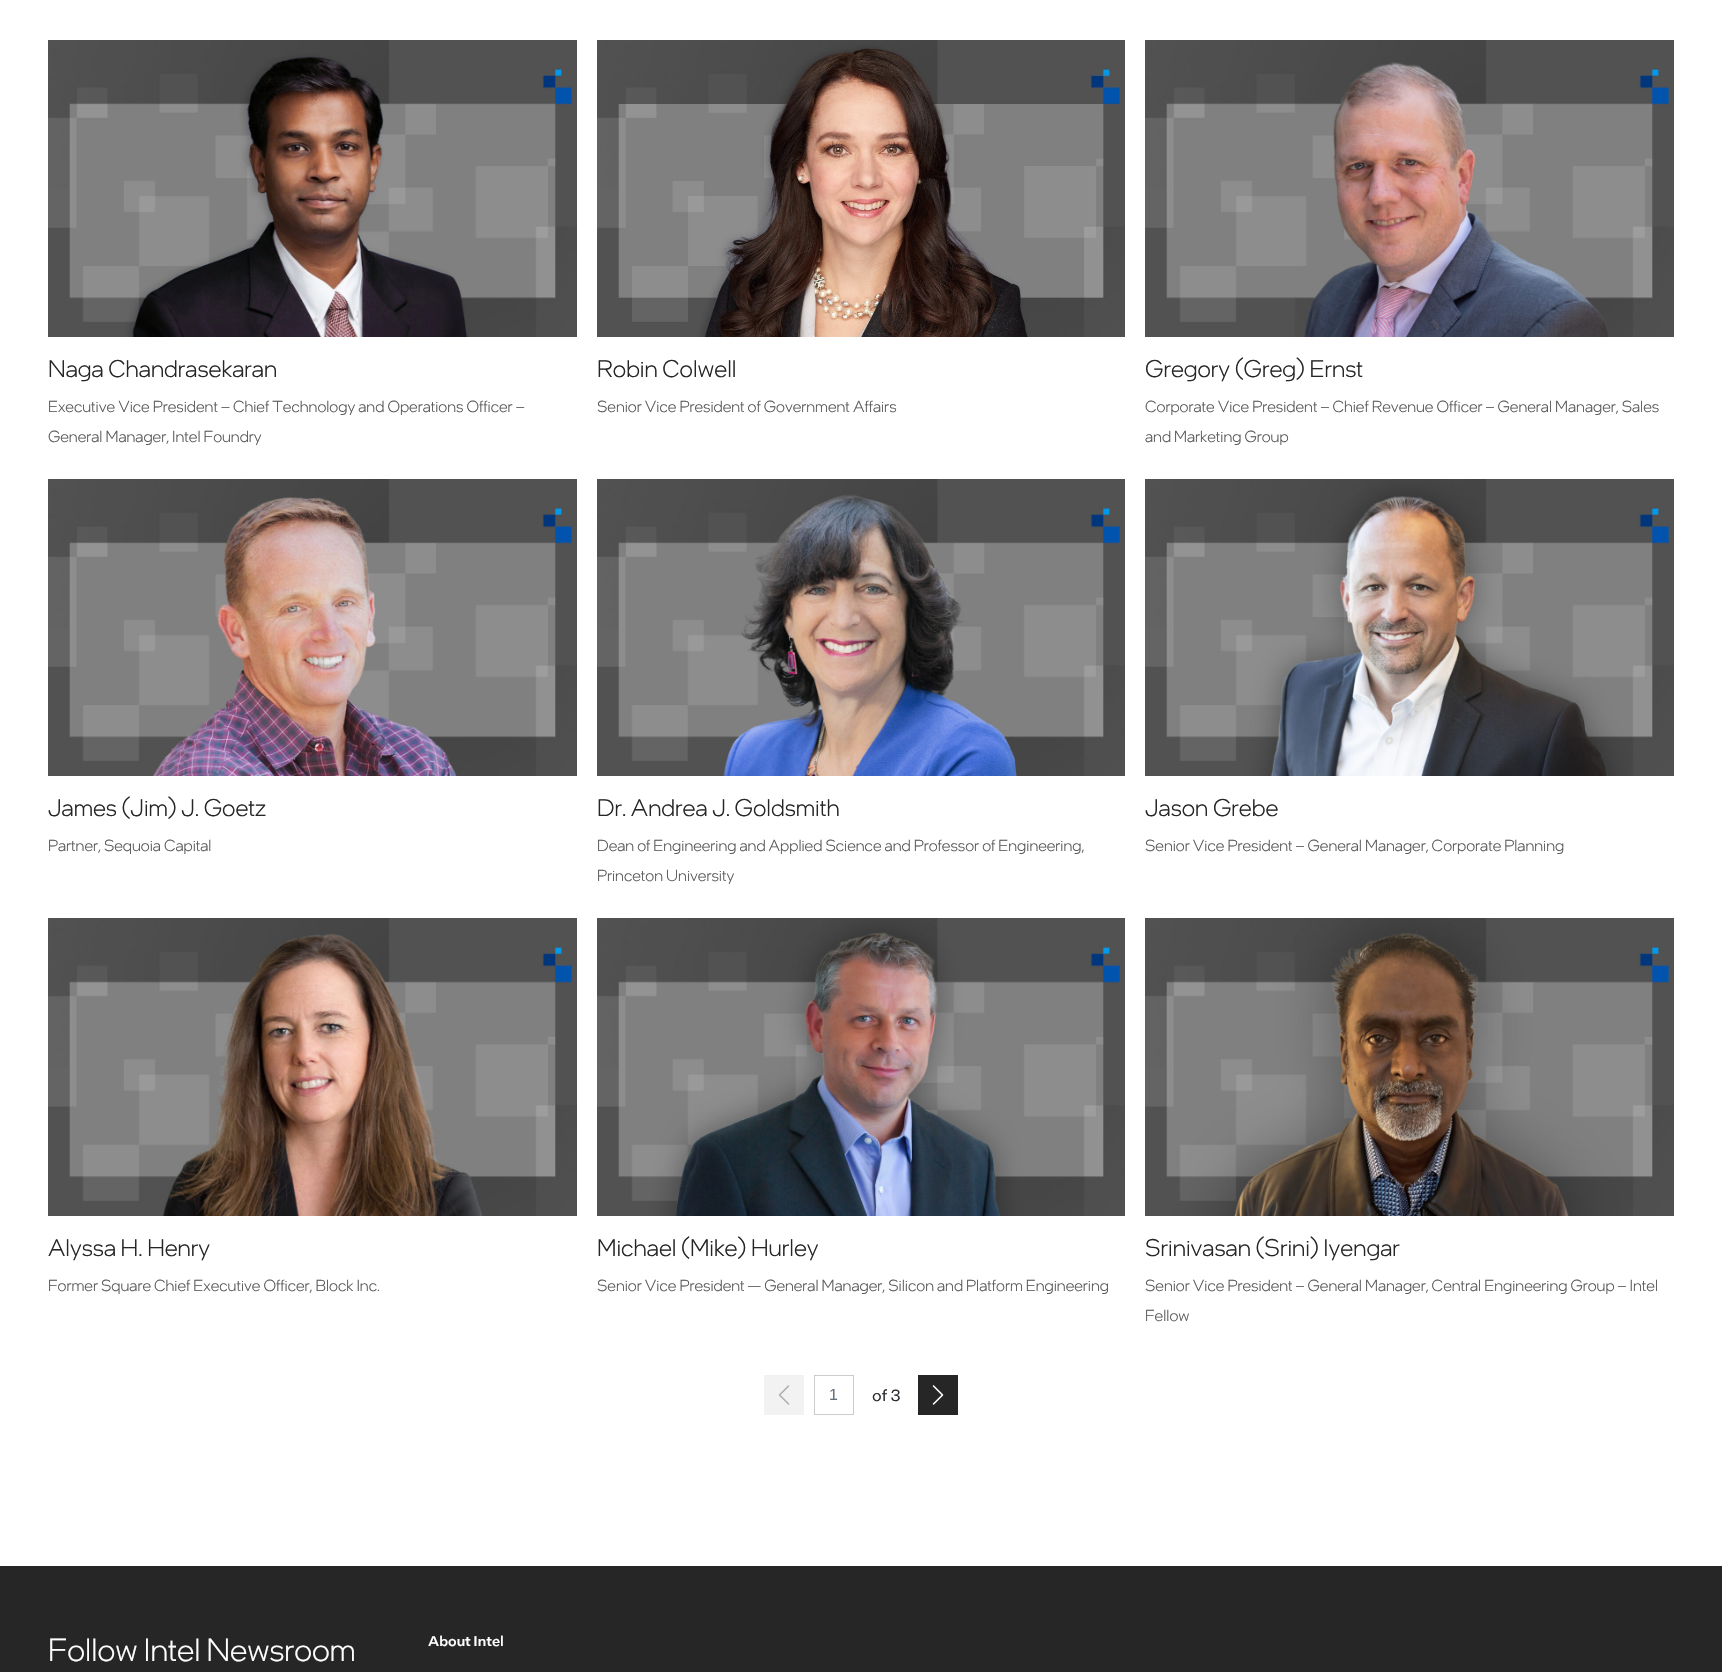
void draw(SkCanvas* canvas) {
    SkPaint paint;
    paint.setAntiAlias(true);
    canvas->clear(0xFFFFFFFF);
    canvas->drawImageRect(SkImages::DeferredFromEncodedData(SkData::MakeFromFileName("img1.png")), SkRect::MakeXYWH(48, 40, 529, 297), SkSamplingOptions());
    SkFont font1(fontMgr->matchFamilyStyle("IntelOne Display", SkFontStyle(300, SkFontStyle::kNormal_Width, SkFontStyle::kUpright_Slant)), 24);
    font1.setSubpixel(true);
    paint.setColor(0xFF262626);
    canvas->drawString("Naga Chandrasekaran", 48, 377, font1, paint);
    SkFont font2(fontMgr->matchFamilyStyle("IntelOne Display", SkFontStyle(300, SkFontStyle::kNormal_Width, SkFontStyle::kUpright_Slant)), 16);
    font2.setSubpixel(true);
    paint.setColor(0xFF595959);
    canvas->drawString("Executive Vice President – Chief Technology and Operations Officer –", 48, 412, font2, paint);
    canvas->drawString("General Manager, Intel Foundry", 48, 442, font2, paint);
    canvas->drawImageRect(SkImages::DeferredFromEncodedData(SkData::MakeFromFileName("img2.png")), SkRect::MakeXYWH(597, 40, 528, 297), SkSamplingOptions());
    paint.setColor(0xFF262626);
    canvas->drawString("Robin Colwell", 597, 377, font1, paint);
    paint.setColor(0xFF595959);
    canvas->drawString("Senior Vice President of Government Affairs", 597, 412, font2, paint);
    canvas->drawImageRect(SkImages::DeferredFromEncodedData(SkData::MakeFromFileName("img3.png")), SkRect::MakeXYWH(1145, 40, 529, 297), SkSamplingOptions());
    paint.setColor(0xFF262626);
    canvas->drawString("Gregory (Greg) Ernst", 1145, 377, font1, paint);
    paint.setColor(0xFF595959);
    canvas->drawString("Corporate Vice President – Chief Revenue Officer – General Manager, Sales", 1145, 412, font2, paint);
    canvas->drawString("and Marketing Group", 1145, 442, font2, paint);
    canvas->drawImageRect(SkImages::DeferredFromEncodedData(SkData::MakeFromFileName("img4.png")), SkRect::MakeXYWH(48, 479, 529, 297), SkSamplingOptions());
    paint.setColor(0xFF262626);
    canvas->drawString("James (Jim) J. Goetz", 48, 816, font1, paint);
    paint.setColor(0xFF595959);
    canvas->drawString("Partner, Sequoia Capital", 48, 851, font2, paint);
    canvas->drawImageRect(SkImages::DeferredFromEncodedData(SkData::MakeFromFileName("img5.png")), SkRect::MakeXYWH(597, 479, 528, 297), SkSamplingOptions());
    paint.setColor(0xFF262626);
    canvas->drawString("Dr. Andrea J. Goldsmith", 597, 816, font1, paint);
    paint.setColor(0xFF595959);
    canvas->drawString("Dean of Engineering and Applied Science and Professor of Engineering,", 597, 851, font2, paint);
    canvas->drawString("Princeton University", 597, 881, font2, paint);
    canvas->drawImageRect(SkImages::DeferredFromEncodedData(SkData::MakeFromFileName("img6.png")), SkRect::MakeXYWH(1145, 479, 529, 297), SkSamplingOptions());
    paint.setColor(0xFF262626);
    canvas->drawString("Jason Grebe", 1145, 816, font1, paint);
    paint.setColor(0xFF595959);
    canvas->drawString("Senior Vice President – General Manager, Corporate Planning", 1145, 851, font2, paint);
    canvas->drawImageRect(SkImages::DeferredFromEncodedData(SkData::MakeFromFileName("img7.png")), SkRect::MakeXYWH(48, 918, 529, 298), SkSamplingOptions());
    paint.setColor(0xFF262626);
    canvas->drawString("Alyssa H. Henry", 48, 1256, font1, paint);
    paint.setColor(0xFF595959);
    canvas->drawString("Former Square Chief Executive Officer, Block Inc.", 48, 1291, font2, paint);
    canvas->drawImageRect(SkImages::DeferredFromEncodedData(SkData::MakeFromFileName("img8.png")), SkRect::MakeXYWH(597, 918, 528, 298), SkSamplingOptions());
    paint.setColor(0xFF262626);
    canvas->drawString("Michael (Mike) Hurley", 597, 1256, font1, paint);
    paint.setColor(0xFF595959);
    canvas->drawString("Senior Vice President — General Manager, Silicon and Platform Engineering", 597, 1291, font2, paint);
    canvas->drawImageRect(SkImages::DeferredFromEncodedData(SkData::MakeFromFileName("img9.png")), SkRect::MakeXYWH(1145, 918, 529, 298), SkSamplingOptions());
    paint.setColor(0xFF262626);
    canvas->drawString("Srinivasan (Srini) Iyengar", 1145, 1256, font1, paint);
    paint.setColor(0xFF595959);
    canvas->drawString("Senior Vice President – General Manager, Central Engineering Group – Intel", 1145, 1291, font2, paint);
    canvas->drawString("Fellow", 1145, 1321, font2, paint);
    paint.setColor(0xFFF2F2F2);
    canvas->drawRect(SkRect::MakeXYWH(764, 1375, 40, 40), paint);
    canvas->drawImageRect(SkImages::DeferredFromEncodedData(SkData::MakeFromFileName("img10.png")), SkRect::MakeXYWH(778, 1385, 12, 20), SkSamplingOptions());
    paint.setStyle(SkPaint::kStroke_Style);
    paint.setStrokeWidth(1);
    paint.setColor(0xFFCCCCCC);
    canvas->drawRect(SkRect::MakeXYWH(814.5f, 1375.5f, 39, 39), paint);
    SkFont font3(fontMgr->matchFamilyStyle("Liberation Sans", SkFontStyle::Normal()), 16);
    font3.setSubpixel(true);
    paint.setStyle(SkPaint::kFill_Style);
    paint.setColor(0xFF62707C);
    canvas->drawString("1", 829, 1400, font3, paint);
    SkFont font4(fontMgr->matchFamilyStyle("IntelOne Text", SkFontStyle::Normal()), 16);
    font4.setSubpixel(true);
    paint.setColor(0xFF272C30);
    canvas->drawString("of 3", 872, 1401, font4, paint);
    paint.setColor(0xFF262626);
    canvas->drawRect(SkRect::MakeXYWH(918, 1375, 40, 40), paint);
    canvas->drawImageRect(SkImages::DeferredFromEncodedData(SkData::MakeFromFileName("img11.png")), SkRect::MakeXYWH(932, 1385, 12, 20), SkSamplingOptions());
    canvas->drawRect(SkRect::MakeXYWH(0, 1566, 1722, 106), paint);
    SkFont font5(fontMgr->matchFamilyStyle("IntelOne Display", SkFontStyle(300, SkFontStyle::kNormal_Width, SkFontStyle::kUpright_Slant)), 32);
    font5.setSubpixel(true);
    paint.setColor(0xFFFFFFFF);
    canvas->drawString("Follow Intel Newsroom", 48, 1661, font5, paint);
    SkFont font6(fontMgr->matchFamilyStyle("IntelOne Text", SkFontStyle(500, SkFontStyle::kNormal_Width, SkFontStyle::kUpright_Slant)), 14);
    font6.setSubpixel(true);
    canvas->drawString("About Intel", 428, 1646, font6, paint);
}
